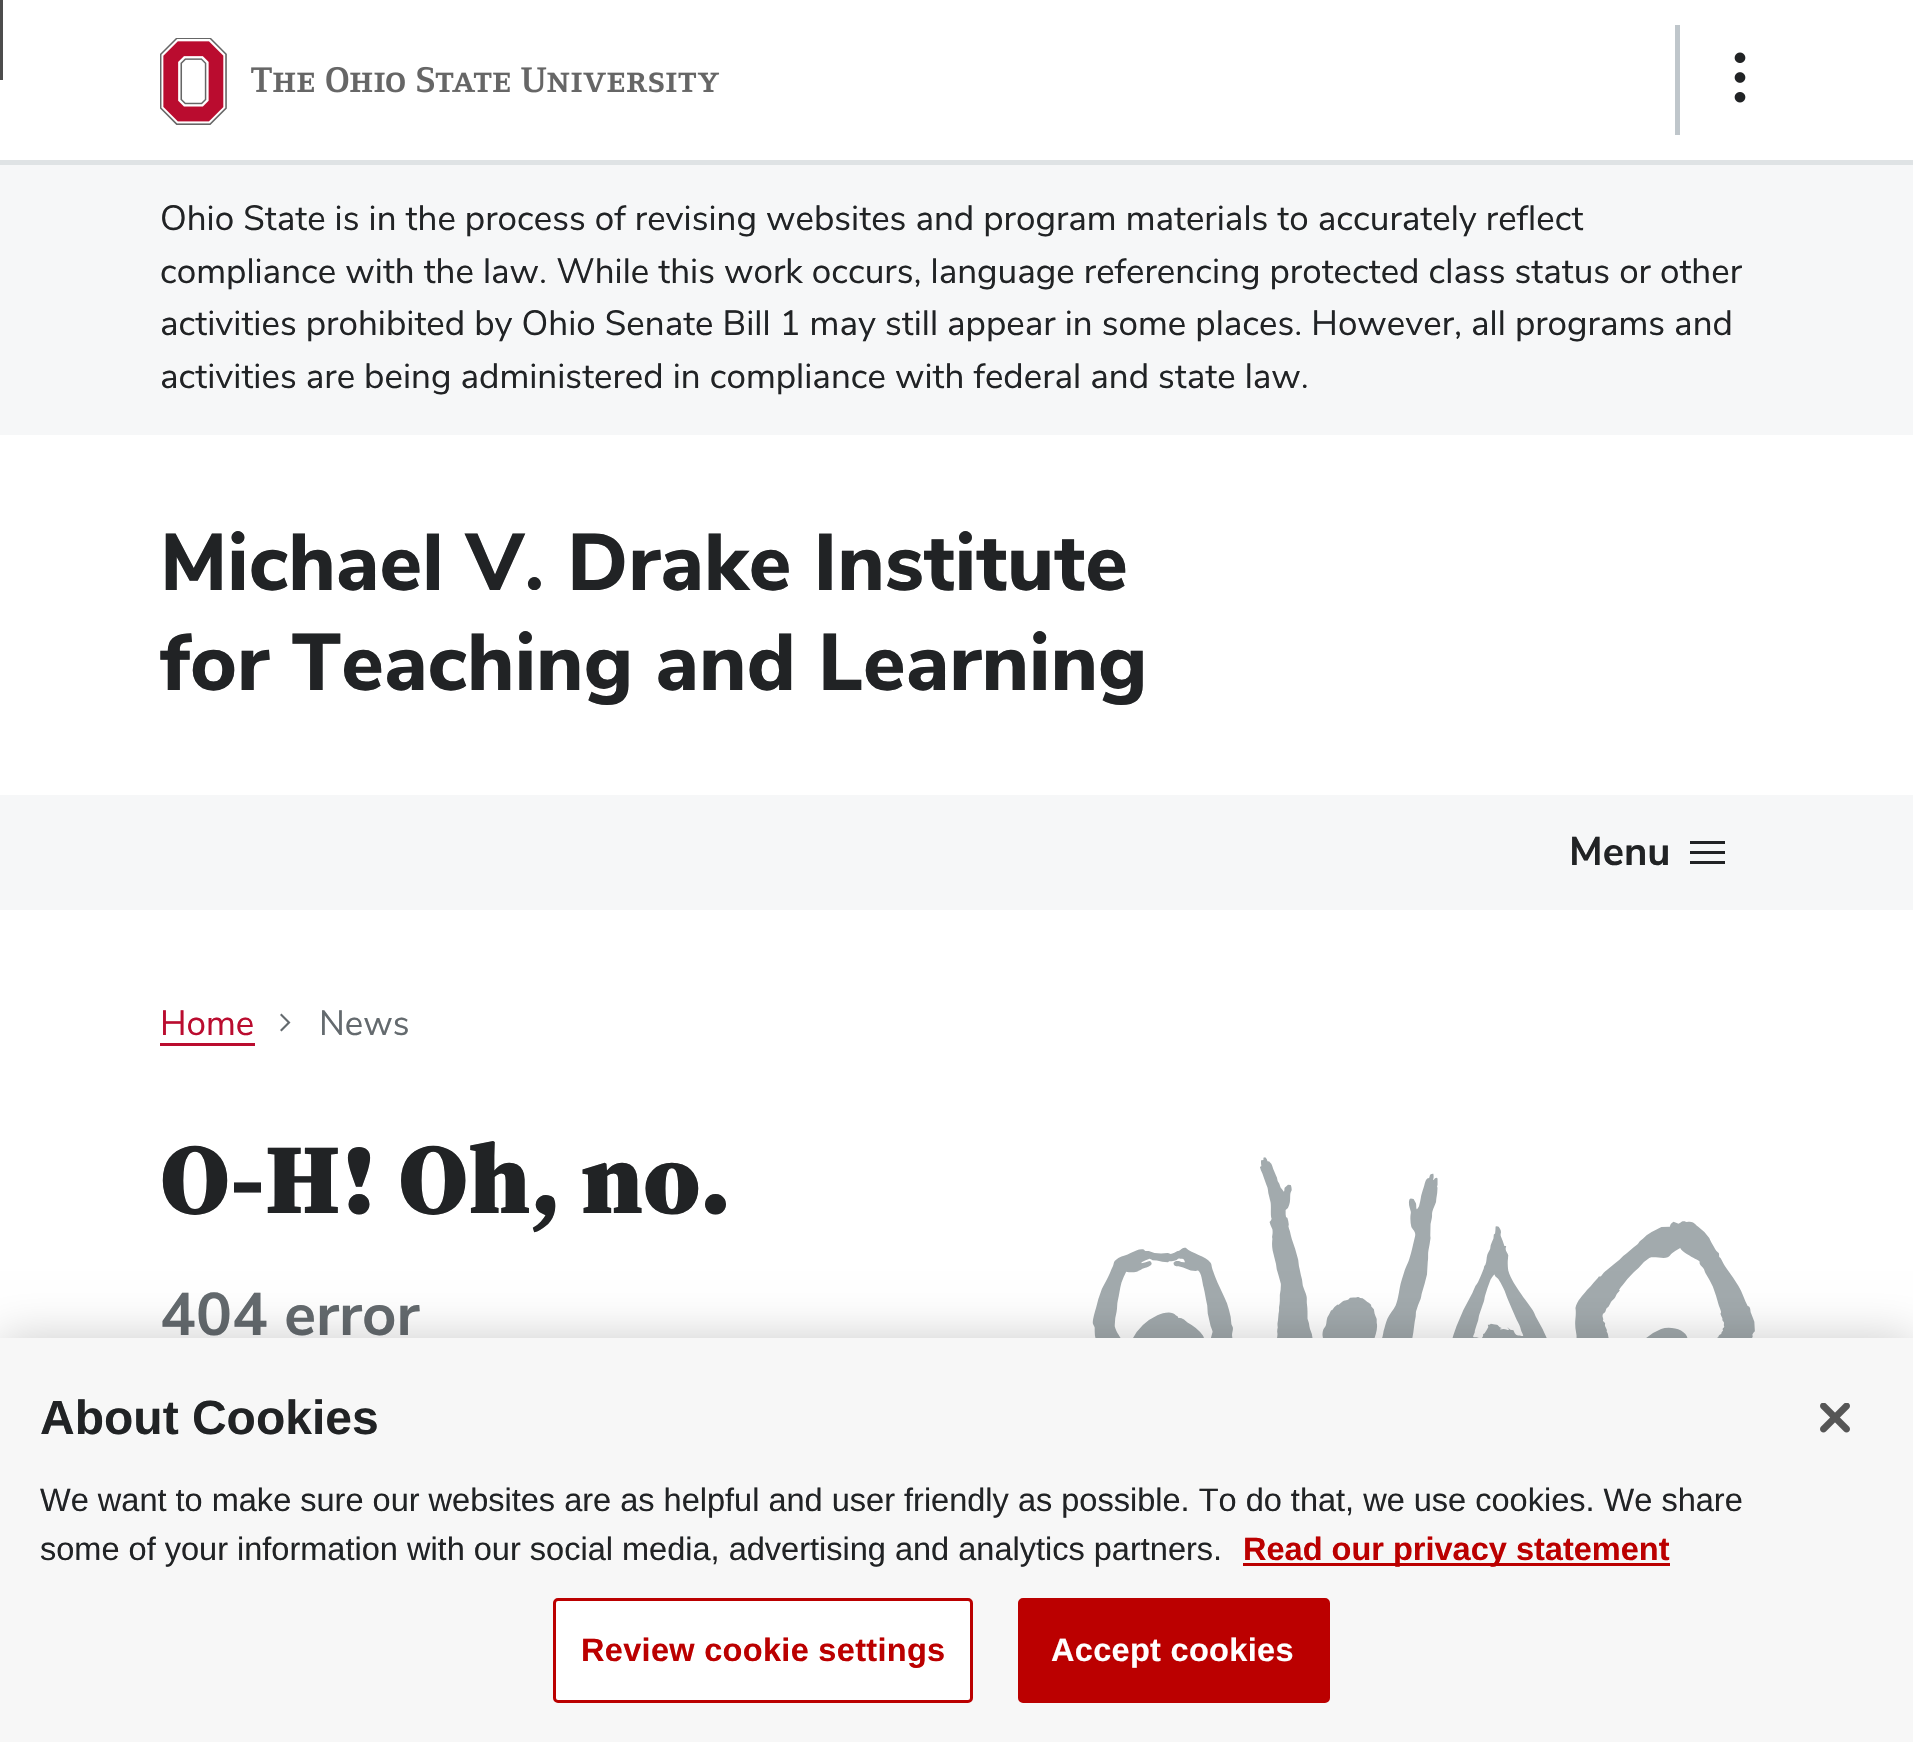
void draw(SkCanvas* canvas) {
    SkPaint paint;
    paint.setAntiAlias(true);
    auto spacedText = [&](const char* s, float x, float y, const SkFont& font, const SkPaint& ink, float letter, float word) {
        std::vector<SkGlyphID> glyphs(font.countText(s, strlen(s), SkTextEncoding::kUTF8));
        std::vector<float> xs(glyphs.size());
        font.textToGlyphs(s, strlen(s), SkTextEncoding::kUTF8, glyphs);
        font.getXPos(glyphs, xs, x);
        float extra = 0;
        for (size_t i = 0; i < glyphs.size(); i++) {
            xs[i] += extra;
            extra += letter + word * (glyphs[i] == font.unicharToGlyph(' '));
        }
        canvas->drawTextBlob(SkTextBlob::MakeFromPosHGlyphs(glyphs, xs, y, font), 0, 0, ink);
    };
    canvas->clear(0xFFF6F7F8);
    paint.setColor(0xFFFFFFFF);
    canvas->drawRect(SkRect::MakeXYWH(0, 0, 1913, 160), paint);
    paint.setColor(0xFF4D4D4D);
    canvas->drawRect(SkRect::MakeXYWH(0, 0, 3, 80), paint);
    paint.setColor(0xFFDFE3E5);
    canvas->drawRect(SkRect::MakeXYWH(0, 160, 1913, 5), paint);
    canvas->drawImageRect(SkImages::DeferredFromEncodedData(SkData::MakeFromFileName("img1.png")), SkRect::MakeXYWH(160, 38, 560, 87), SkSamplingOptions());
    paint.setColor(0xFFBFC6CB);
    canvas->drawRect(SkRect::MakeXYWH(1675, 25, 5, 110), paint);
    canvas->drawImageRect(SkImages::DeferredFromEncodedData(SkData::MakeFromFileName("img2.png")), SkRect::MakeXYWH(1734, 52, 12, 51), SkSamplingOptions());
    SkFont font1(fontMgr->matchFamilyStyle("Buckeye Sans", SkFontStyle::Normal()), 35);
    font1.setSubpixel(true);
    paint.setColor(0xFF212325);
    canvas->drawString("Ohio State is in the process of revising websites and program materials to accurately reflect", 160, 230, font1, paint);
    canvas->drawString("compliance with the law. While this work occurs, language referencing protected class status or other", 160, 283, font1, paint);
    canvas->drawString("activities prohibited by Ohio Senate Bill 1 may still appear in some places. However, all programs and", 160, 335, font1, paint);
    canvas->drawString("activities are being administered in compliance with federal and state law.", 160, 388, font1, paint);
    paint.setColor(0xFFFFFFFF);
    canvas->drawRect(SkRect::MakeXYWH(0, 435, 1913, 360), paint);
    SkFont font2(fontMgr->matchFamilyStyle("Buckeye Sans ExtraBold", SkFontStyle(800, SkFontStyle::kNormal_Width, SkFontStyle::kUpright_Slant)), 80);
    font2.setSubpixel(true);
    paint.setColor(0xFF212325);
    canvas->drawString("Michael V. Drake Institute", 160, 590, font2, paint);
    canvas->drawString("for Teaching and Learning", 160, 690, font2, paint);
    paint.setColor(0xFFFFFFFF);
    canvas->drawRect(SkRect::MakeXYWH(0, 910, 1913, 428), paint);
    SkFont font3(fontMgr->matchFamilyStyle("Buckeye Sans", SkFontStyle::Bold()), 40);
    font3.setSubpixel(true);
    paint.setColor(0xFF212325);
    canvas->drawString("Menu", 1569, 865, font3, paint);
    canvas->drawPath(SkPathBuilder().moveTo(1725, 844).lineTo(1690, 844).lineTo(1690, 841).lineTo(1725, 841).close().moveTo(1725, 854).lineTo(1690, 854).lineTo(1690, 851).lineTo(1725, 851).close().moveTo(1690, 864).lineTo(1725, 864).lineTo(1725, 861).lineTo(1690, 861).close().detach(), paint);
    paint.setColor(0xFFBA0C2F);
    canvas->drawString("Home", 160, 1035, font1, paint);
    canvas->drawRect(SkRect::MakeXYWH(160, 1043, 95, 3), paint);
    paint.setColor(0xFF646A6E);
    canvas->drawPath(SkPathBuilder().moveTo(287.5f, 1022.5f).lineTo(280, 1015).lineTo(281.5f, 1013.5f).lineTo(290.5f, 1022.5f).lineTo(281.5f, 1031.5f).lineTo(280, 1030).close().detach(), paint);
    canvas->drawString("News", 319, 1035, font1, paint);
    SkFont font4(fontMgr->matchFamilyStyle("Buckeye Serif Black", SkFontStyle(900, SkFontStyle::kNormal_Width, SkFontStyle::kUpright_Slant)), 100);
    font4.setSubpixel(true);
    paint.setColor(0xFF212325);
    canvas->drawString("O-H! Oh, no.", 160, 1213, font4, paint);
    SkFont font5(fontMgr->matchFamilyStyle("Buckeye Sans", SkFontStyle::Bold()), 60);
    font5.setSubpixel(true);
    paint.setColor(0xFF646A6E);
    canvas->drawString("404 error", 160, 1335, font5, paint);
    canvas->drawImageRect(SkImages::DeferredFromEncodedData(SkData::MakeFromFileName("img3.png")), SkRect::MakeXYWH(1092, 1157, 663, 181), SkSamplingOptions());
    paint.setColor(0x33000000);
    paint.setMaskFilter(SkMaskFilter::MakeBlur(kNormal_SkBlurStyle, 22.5f));
    canvas->drawRect(SkRect::MakeXYWH(0, 1338, 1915, 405), paint);
    paint.setMaskFilter(nullptr);
    paint.setColor(0xFFF7F7F7);
    canvas->drawRect(SkRect::MakeXYWH(0, 1338, 1913, 404), paint);
    SkFont font6(fontMgr->matchFamilyStyle("Liberation Sans", SkFontStyle::Bold()), 48);
    font6.setSubpixel(true);
    paint.setColor(0xFF212325);
    canvas->drawString("About Cookies", 40, 1434, font6, paint);
    SkFont font7(fontMgr->matchFamilyStyle("Liberation Sans", SkFontStyle::Normal()), 32.52f);
    font7.setSubpixel(true);
    canvas->drawString("We want to make sure our websites are as helpful and user friendly as possible. To do that, we use cookies. We share", 40, 1511, font7, paint);
    canvas->drawString("some of your information with our social media, advertising and analytics partners.", 40, 1560, font7, paint);
    paint.setColor(0xFFBB0000);
    canvas->drawRect(SkRect::MakeXYWH(1243, 1563, 427, 3), paint);
    SkFont font8(fontMgr->matchFamilyStyle("Liberation Sans", SkFontStyle::Bold()), 32.52f);
    font8.setSubpixel(true);
    canvas->drawString("Read our privacy statement", 1243, 1560, font8, paint);
    paint.setColor(0xFFFFFFFF);
    canvas->drawRoundRect(SkRect::MakeXYWH(554.5f, 1599.5f, 417, 102), 3.5f, 3.5f, paint);
    paint.setStyle(SkPaint::kStroke_Style);
    paint.setStrokeWidth(3);
    paint.setColor(0xFFBB0000);
    canvas->drawRoundRect(SkRect::MakeXYWH(554.5f, 1599.5f, 417, 102), 3.5f, 3.5f, paint);
    paint.setStyle(SkPaint::kFill_Style);
    spacedText("Review cookie settings", 581, 1661, font8, paint, 0.3f, 0);
    canvas->drawRoundRect(SkRect::MakeXYWH(1019.5f, 1599.5f, 309, 102), 3.5f, 3.5f, paint);
    paint.setStyle(SkPaint::kStroke_Style);
    canvas->drawRoundRect(SkRect::MakeXYWH(1019.5f, 1599.5f, 309, 102), 3.5f, 3.5f, paint);
    paint.setStyle(SkPaint::kFill_Style);
    paint.setColor(0xFFFFFFFF);
    spacedText("Accept cookies", 1051, 1661, font8, paint, 0.3f, 0);
    canvas->drawImageRect(SkImages::DeferredFromEncodedData(SkData::MakeFromFileName("img4.png")), SkRect::MakeXYWH(1820, 1403, 30, 30), SkSamplingOptions());
}
